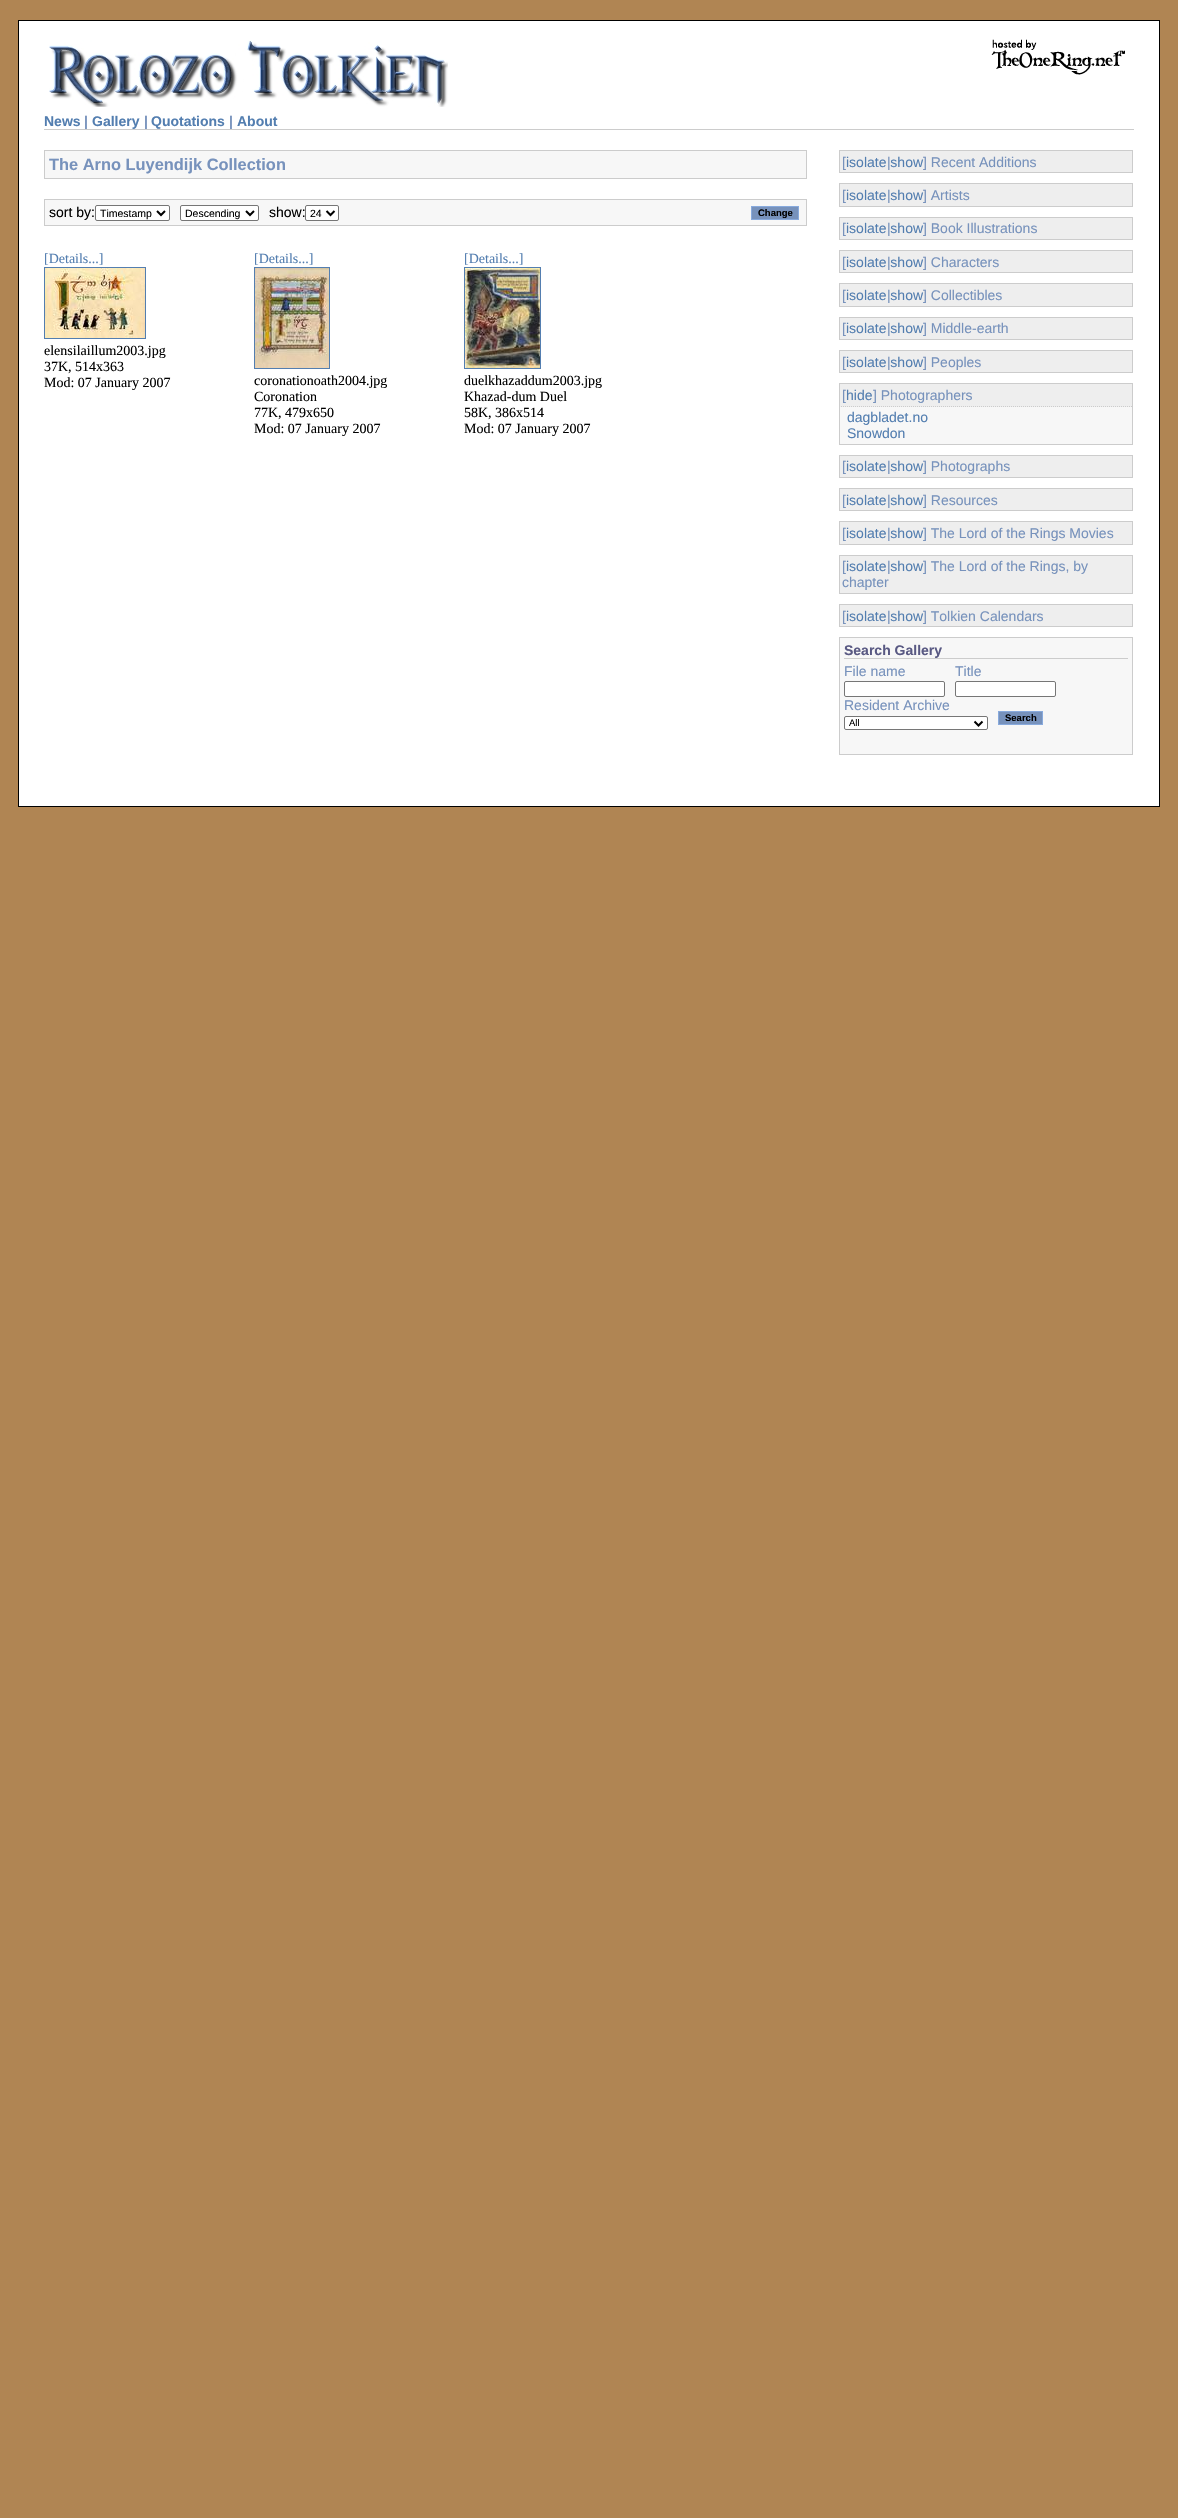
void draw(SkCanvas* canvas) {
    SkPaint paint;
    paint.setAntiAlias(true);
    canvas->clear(0xFFB08553);
    paint.setColor(0xFFFFFFFF);
    canvas->drawRect(SkRect::MakeXYWH(18.5f, 20.5f, 1141, 786), paint);
    paint.setStyle(SkPaint::kStroke_Style);
    paint.setStrokeWidth(1);
    paint.setColor(0xFF000000);
    canvas->drawRect(SkRect::MakeXYWH(18.5f, 20.5f, 1141, 786), paint);
    canvas->drawImageRect(SkImages::DeferredFromEncodedData(SkData::MakeFromFileName("img1.png")), SkRect::MakeXYWH(49, 40, 399, 67), SkSamplingOptions());
    canvas->drawImageRect(SkImages::DeferredFromEncodedData(SkData::MakeFromFileName("img2.png")), SkRect::MakeXYWH(991, 39, 134, 36), SkSamplingOptions());
    paint.setStyle(SkPaint::kFill_Style);
    paint.setColor(0xFFCCCCCC);
    canvas->drawRect(SkRect::MakeXYWH(44, 129, 1090, 1), paint);
    SkFont font1(fontMgr->matchFamilyStyle("Liberation Sans", SkFontStyle::Bold()), 14);
    font1.setSubpixel(true);
    paint.setColor(0xFF537EB0);
    canvas->drawString("News", 44, 126, font1, paint);
    paint.setColor(0xFF7792BC);
    canvas->drawString("|", 84, 126, font1, paint);
    paint.setColor(0xFF537EB0);
    canvas->drawString("Gallery", 92, 126, font1, paint);
    paint.setColor(0xFF7792BC);
    canvas->drawString("|", 144, 126, font1, paint);
    paint.setColor(0xFF537EB0);
    canvas->drawString("Quotations", 151, 126, font1, paint);
    paint.setColor(0xFF7792BC);
    canvas->drawString("|", 229, 126, font1, paint);
    paint.setColor(0xFF537EB0);
    canvas->drawString("About", 237, 126, font1, paint);
    paint.setColor(0xFFF7F7F7);
    canvas->drawRect(SkRect::MakeXYWH(44.5f, 150.5f, 762, 28), paint);
    paint.setStyle(SkPaint::kStroke_Style);
    paint.setColor(0xFFCCCCCC);
    canvas->drawRect(SkRect::MakeXYWH(44.5f, 150.5f, 762, 28), paint);
    SkFont font2(fontMgr->matchFamilyStyle("Liberation Sans", SkFontStyle::Bold()), 16.4f);
    font2.setSubpixel(true);
    paint.setStyle(SkPaint::kFill_Style);
    paint.setColor(0xFF7792BC);
    canvas->drawString("The Arno Luyendijk Collection", 49, 170, font2, paint);
    paint.setColor(0xFFF7F7F7);
    canvas->drawRect(SkRect::MakeXYWH(44.5f, 199.5f, 762, 26), paint);
    paint.setStyle(SkPaint::kStroke_Style);
    paint.setColor(0xFFCCCCCC);
    canvas->drawRect(SkRect::MakeXYWH(44.5f, 199.5f, 762, 26), paint);
    SkFont font3(fontMgr->matchFamilyStyle("Liberation Sans", SkFontStyle::Normal()), 14);
    font3.setSubpixel(true);
    paint.setStyle(SkPaint::kFill_Style);
    paint.setColor(0xFF000000);
    canvas->drawString("sort by:", 49, 217, font3, paint);
    paint.setColor(0xFFFFFFFF);
    canvas->drawRoundRect(SkRect::MakeXYWH(95.5f, 205.5f, 74, 15), 1.5f, 1.5f, paint);
    paint.setStyle(SkPaint::kStroke_Style);
    paint.setColor(0xFF767676);
    canvas->drawRoundRect(SkRect::MakeXYWH(95.5f, 205.5f, 74, 15), 1.5f, 1.5f, paint);
    paint.setStrokeWidth(2);
    paint.setColor(0xFF000000);
    canvas->drawPath(SkPathBuilder().moveTo(157, 211).lineTo(161, 215).lineTo(165, 211).detach(), paint);
    SkFont font4(fontMgr->matchFamilyStyle("Liberation Sans", SkFontStyle::Normal()), 10.5f);
    font4.setSubpixel(true);
    paint.setStyle(SkPaint::kFill_Style);
    canvas->drawString("Timestamp", 100, 217, font4, paint);
    paint.setColor(0xFFFFFFFF);
    canvas->drawRoundRect(SkRect::MakeXYWH(180.5f, 205.5f, 78, 15), 1.5f, 1.5f, paint);
    paint.setStyle(SkPaint::kStroke_Style);
    paint.setStrokeWidth(1);
    paint.setColor(0xFF767676);
    canvas->drawRoundRect(SkRect::MakeXYWH(180.5f, 205.5f, 78, 15), 1.5f, 1.5f, paint);
    paint.setStrokeWidth(2);
    paint.setColor(0xFF000000);
    canvas->drawPath(SkPathBuilder().moveTo(246, 211).lineTo(250, 215).lineTo(254, 211).detach(), paint);
    paint.setStyle(SkPaint::kFill_Style);
    canvas->drawString("Descending", 185, 217, font4, paint);
    canvas->drawString("show:", 269, 217, font3, paint);
    paint.setColor(0xFFFFFFFF);
    canvas->drawRoundRect(SkRect::MakeXYWH(305.5f, 205.5f, 33, 15), 1.5f, 1.5f, paint);
    paint.setStyle(SkPaint::kStroke_Style);
    paint.setStrokeWidth(1);
    paint.setColor(0xFF767676);
    canvas->drawRoundRect(SkRect::MakeXYWH(305.5f, 205.5f, 33, 15), 1.5f, 1.5f, paint);
    paint.setStrokeWidth(2);
    paint.setColor(0xFF000000);
    canvas->drawPath(SkPathBuilder().moveTo(326.5f, 211).lineTo(330.5f, 215).lineTo(334.5f, 211).detach(), paint);
    paint.setStyle(SkPaint::kFill_Style);
    canvas->drawString("24", 310, 217, font4, paint);
    paint.setColor(0xFF7792BC);
    canvas->drawRect(SkRect::MakeXYWH(751.5f, 206.5f, 47, 13), paint);
    paint.setStyle(SkPaint::kStroke_Style);
    paint.setStrokeWidth(1);
    paint.setColor(0xFF88AADD);
    canvas->drawRect(SkRect::MakeXYWH(751.5f, 206.5f, 47, 13), paint);
    SkFont font5(fontMgr->matchFamilyStyle("Liberation Sans", SkFontStyle::Bold()), 9.5f);
    font5.setSubpixel(true);
    paint.setStyle(SkPaint::kFill_Style);
    paint.setColor(0xFF000000);
    canvas->drawString("Change", 758, 216, font5, paint);
    SkFont font6(fontMgr->matchFamilyStyle("Liberation Serif", SkFontStyle::Normal()), 14);
    font6.setSubpixel(true);
    paint.setColor(0xFF537EB0);
    canvas->drawString("[Details...]", 44, 263, font6, paint);
    paint.setStyle(SkPaint::kStroke_Style);
    canvas->drawRect(SkRect::MakeXYWH(44.5f, 267.5f, 101, 71), paint);
    canvas->drawImageRect(SkImages::DeferredFromEncodedData(SkData::MakeFromFileName("img3.png")), SkRect::MakeXYWH(45, 268, 100, 70), SkSamplingOptions());
    paint.setStyle(SkPaint::kFill_Style);
    paint.setColor(0xFF000000);
    canvas->drawString("elensilaillum2003.jpg", 44, 355, font6, paint);
    canvas->drawString("37K, 514x363", 44, 371, font6, paint);
    canvas->drawString("Mod: 07 January 2007", 44, 387, font6, paint);
    paint.setColor(0xFF537EB0);
    canvas->drawString("[Details...]", 254, 263, font6, paint);
    paint.setStyle(SkPaint::kStroke_Style);
    canvas->drawRect(SkRect::MakeXYWH(254.5f, 267.5f, 75, 101), paint);
    canvas->drawImageRect(SkImages::DeferredFromEncodedData(SkData::MakeFromFileName("img4.png")), SkRect::MakeXYWH(255, 268, 74, 100), SkSamplingOptions());
    paint.setStyle(SkPaint::kFill_Style);
    paint.setColor(0xFF000000);
    canvas->drawString("coronationoath2004.jpg", 254, 385, font6, paint);
    canvas->drawString("Coronation", 254, 401, font6, paint);
    canvas->drawString("77K, 479x650", 254, 417, font6, paint);
    canvas->drawString("Mod: 07 January 2007", 254, 433, font6, paint);
    paint.setColor(0xFF537EB0);
    canvas->drawString("[Details...]", 464, 263, font6, paint);
    paint.setStyle(SkPaint::kStroke_Style);
    canvas->drawRect(SkRect::MakeXYWH(464.5f, 267.5f, 76, 101), paint);
    canvas->drawImageRect(SkImages::DeferredFromEncodedData(SkData::MakeFromFileName("img5.png")), SkRect::MakeXYWH(465, 268, 75, 100), SkSamplingOptions());
    paint.setStyle(SkPaint::kFill_Style);
    paint.setColor(0xFF000000);
    canvas->drawString("duelkhazaddum2003.jpg", 464, 385, font6, paint);
    canvas->drawString("Khazad-dum Duel", 464, 401, font6, paint);
    canvas->drawString("58K, 386x514", 464, 417, font6, paint);
    canvas->drawString("Mod: 07 January 2007", 464, 433, font6, paint);
    paint.setColor(0xFFEEEEEE);
    canvas->drawRect(SkRect::MakeXYWH(839.5f, 150.5f, 293, 22), paint);
    paint.setStyle(SkPaint::kStroke_Style);
    paint.setColor(0xFFCCCCCC);
    canvas->drawRect(SkRect::MakeXYWH(839.5f, 150.5f, 293, 22), paint);
    paint.setStyle(SkPaint::kFill_Style);
    paint.setColor(0xFF7792BC);
    canvas->drawString("[", 842, 167, font3, paint);
    paint.setColor(0xFF537EB0);
    canvas->drawString("isolate show", 846, 167, font3, paint);
    paint.setColor(0xFF7792BC);
    canvas->drawString("|", 887, 167, font3, paint);
    canvas->drawString("] Recent Additions", 923, 167, font3, paint);
    paint.setColor(0xFFEEEEEE);
    canvas->drawRect(SkRect::MakeXYWH(839.5f, 183.5f, 293, 23), paint);
    paint.setStyle(SkPaint::kStroke_Style);
    paint.setColor(0xFFCCCCCC);
    canvas->drawRect(SkRect::MakeXYWH(839.5f, 183.5f, 293, 23), paint);
    paint.setStyle(SkPaint::kFill_Style);
    paint.setColor(0xFF7792BC);
    canvas->drawString("[", 842, 200, font3, paint);
    paint.setColor(0xFF537EB0);
    canvas->drawString("isolate show", 846, 200, font3, paint);
    paint.setColor(0xFF7792BC);
    canvas->drawString("|", 887, 200, font3, paint);
    canvas->drawString("] Artists", 923, 200, font3, paint);
    paint.setColor(0xFFEEEEEE);
    canvas->drawRect(SkRect::MakeXYWH(839.5f, 217.5f, 293, 22), paint);
    paint.setStyle(SkPaint::kStroke_Style);
    paint.setColor(0xFFCCCCCC);
    canvas->drawRect(SkRect::MakeXYWH(839.5f, 217.5f, 293, 22), paint);
    paint.setStyle(SkPaint::kFill_Style);
    paint.setColor(0xFF7792BC);
    canvas->drawString("[", 842, 233, font3, paint);
    paint.setColor(0xFF537EB0);
    canvas->drawString("isolate show", 846, 233, font3, paint);
    paint.setColor(0xFF7792BC);
    canvas->drawString("|", 887, 233, font3, paint);
    canvas->drawString("] Book Illustrations", 923, 233, font3, paint);
    paint.setColor(0xFFEEEEEE);
    canvas->drawRect(SkRect::MakeXYWH(839.5f, 250.5f, 293, 22), paint);
    paint.setStyle(SkPaint::kStroke_Style);
    paint.setColor(0xFFCCCCCC);
    canvas->drawRect(SkRect::MakeXYWH(839.5f, 250.5f, 293, 22), paint);
    paint.setStyle(SkPaint::kFill_Style);
    paint.setColor(0xFF7792BC);
    canvas->drawString("[", 842, 267, font3, paint);
    paint.setColor(0xFF537EB0);
    canvas->drawString("isolate show", 846, 267, font3, paint);
    paint.setColor(0xFF7792BC);
    canvas->drawString("|", 887, 267, font3, paint);
    canvas->drawString("] Characters", 923, 267, font3, paint);
    paint.setColor(0xFFEEEEEE);
    canvas->drawRect(SkRect::MakeXYWH(839.5f, 283.5f, 293, 23), paint);
    paint.setStyle(SkPaint::kStroke_Style);
    paint.setColor(0xFFCCCCCC);
    canvas->drawRect(SkRect::MakeXYWH(839.5f, 283.5f, 293, 23), paint);
    paint.setStyle(SkPaint::kFill_Style);
    paint.setColor(0xFF7792BC);
    canvas->drawString("[", 842, 300, font3, paint);
    paint.setColor(0xFF537EB0);
    canvas->drawString("isolate show", 846, 300, font3, paint);
    paint.setColor(0xFF7792BC);
    canvas->drawString("|", 887, 300, font3, paint);
    canvas->drawString("] Collectibles", 923, 300, font3, paint);
    paint.setColor(0xFFEEEEEE);
    canvas->drawRect(SkRect::MakeXYWH(839.5f, 317.5f, 293, 22), paint);
    paint.setStyle(SkPaint::kStroke_Style);
    paint.setColor(0xFFCCCCCC);
    canvas->drawRect(SkRect::MakeXYWH(839.5f, 317.5f, 293, 22), paint);
    paint.setStyle(SkPaint::kFill_Style);
    paint.setColor(0xFF7792BC);
    canvas->drawString("[", 842, 333, font3, paint);
    paint.setColor(0xFF537EB0);
    canvas->drawString("isolate show", 846, 333, font3, paint);
    paint.setColor(0xFF7792BC);
    canvas->drawString("|", 887, 333, font3, paint);
    canvas->drawString("] Middle-earth", 923, 333, font3, paint);
    paint.setColor(0xFFEEEEEE);
    canvas->drawRect(SkRect::MakeXYWH(839.5f, 350.5f, 293, 22), paint);
    paint.setStyle(SkPaint::kStroke_Style);
    paint.setColor(0xFFCCCCCC);
    canvas->drawRect(SkRect::MakeXYWH(839.5f, 350.5f, 293, 22), paint);
    paint.setStyle(SkPaint::kFill_Style);
    paint.setColor(0xFF7792BC);
    canvas->drawString("[", 842, 367, font3, paint);
    paint.setColor(0xFF537EB0);
    canvas->drawString("isolate show", 846, 367, font3, paint);
    paint.setColor(0xFF7792BC);
    canvas->drawString("|", 887, 367, font3, paint);
    canvas->drawString("] Peoples", 923, 367, font3, paint);
    paint.setColor(0xFFEEEEEE);
    canvas->drawRect(SkRect::MakeXYWH(840, 384, 292, 23), paint);
    paint.setColor(0xFFCCCCCC);
    canvas->drawRect(SkRect::MakeXYWH(839, 383, 294, 1), paint);
    canvas->drawRect(SkRect::MakeXYWH(1132, 383, 1, 62), paint);
    paint.setStyle(SkPaint::kStroke_Style);
    paint.setPathEffect(SkDashPathEffect::Make({{1, 1}}, 0));
    canvas->drawPath(SkPathBuilder().moveTo(839, 406.5f).lineTo(1133, 406.5f).detach(), paint);
    paint.setPathEffect(nullptr);
    paint.setStyle(SkPaint::kFill_Style);
    canvas->drawRect(SkRect::MakeXYWH(839, 383, 1, 24), paint);
    paint.setColor(0xFF7792BC);
    canvas->drawString("[", 842, 400, font3, paint);
    paint.setColor(0xFF537EB0);
    canvas->drawString("hide", 846, 400, font3, paint);
    paint.setColor(0xFF7792BC);
    canvas->drawString("] Photographers", 873, 400, font3, paint);
    paint.setColor(0xFFF7F7F7);
    canvas->drawRect(SkRect::MakeXYWH(840, 407, 292, 37), paint);
    paint.setColor(0xFFCCCCCC);
    canvas->drawRect(SkRect::MakeXYWH(839, 444, 294, 1), paint);
    canvas->drawRect(SkRect::MakeXYWH(839, 407, 1, 38), paint);
    paint.setColor(0xFF537EB0);
    canvas->drawString("dagbladet.no", 847, 422, font3, paint);
    canvas->drawString("Snowdon", 847, 438, font3, paint);
    paint.setColor(0xFFEEEEEE);
    canvas->drawRect(SkRect::MakeXYWH(839.5f, 455.5f, 293, 22), paint);
    paint.setStyle(SkPaint::kStroke_Style);
    paint.setColor(0xFFCCCCCC);
    canvas->drawRect(SkRect::MakeXYWH(839.5f, 455.5f, 293, 22), paint);
    paint.setStyle(SkPaint::kFill_Style);
    paint.setColor(0xFF7792BC);
    canvas->drawString("[", 842, 471, font3, paint);
    paint.setColor(0xFF537EB0);
    canvas->drawString("isolate show", 846, 471, font3, paint);
    paint.setColor(0xFF7792BC);
    canvas->drawString("|", 887, 471, font3, paint);
    canvas->drawString("] Photographs", 923, 471, font3, paint);
    paint.setColor(0xFFEEEEEE);
    canvas->drawRect(SkRect::MakeXYWH(839.5f, 488.5f, 293, 22), paint);
    paint.setStyle(SkPaint::kStroke_Style);
    paint.setColor(0xFFCCCCCC);
    canvas->drawRect(SkRect::MakeXYWH(839.5f, 488.5f, 293, 22), paint);
    paint.setStyle(SkPaint::kFill_Style);
    paint.setColor(0xFF7792BC);
    canvas->drawString("[", 842, 505, font3, paint);
    paint.setColor(0xFF537EB0);
    canvas->drawString("isolate show", 846, 505, font3, paint);
    paint.setColor(0xFF7792BC);
    canvas->drawString("|", 887, 505, font3, paint);
    canvas->drawString("] Resources", 923, 505, font3, paint);
    paint.setColor(0xFFEEEEEE);
    canvas->drawRect(SkRect::MakeXYWH(839.5f, 521.5f, 293, 23), paint);
    paint.setStyle(SkPaint::kStroke_Style);
    paint.setColor(0xFFCCCCCC);
    canvas->drawRect(SkRect::MakeXYWH(839.5f, 521.5f, 293, 23), paint);
    paint.setStyle(SkPaint::kFill_Style);
    paint.setColor(0xFF7792BC);
    canvas->drawString("[", 842, 538, font3, paint);
    paint.setColor(0xFF537EB0);
    canvas->drawString("isolate show", 846, 538, font3, paint);
    paint.setColor(0xFF7792BC);
    canvas->drawString("|", 887, 538, font3, paint);
    canvas->drawString("] The Lord of the Rings Movies", 923, 538, font3, paint);
    paint.setColor(0xFFEEEEEE);
    canvas->drawRect(SkRect::MakeXYWH(839.5f, 555.5f, 293, 38), paint);
    paint.setStyle(SkPaint::kStroke_Style);
    paint.setColor(0xFFCCCCCC);
    canvas->drawRect(SkRect::MakeXYWH(839.5f, 555.5f, 293, 38), paint);
    paint.setStyle(SkPaint::kFill_Style);
    paint.setColor(0xFF7792BC);
    canvas->drawString("[", 842, 571, font3, paint);
    paint.setColor(0xFF537EB0);
    canvas->drawString("isolate show", 846, 571, font3, paint);
    paint.setColor(0xFF7792BC);
    canvas->drawString("|", 887, 571, font3, paint);
    canvas->drawString("] The Lord of the Rings, by", 923, 571, font3, paint);
    canvas->drawString("chapter", 842, 587, font3, paint);
    paint.setColor(0xFFEEEEEE);
    canvas->drawRect(SkRect::MakeXYWH(839.5f, 604.5f, 293, 22), paint);
    paint.setStyle(SkPaint::kStroke_Style);
    paint.setColor(0xFFCCCCCC);
    canvas->drawRect(SkRect::MakeXYWH(839.5f, 604.5f, 293, 22), paint);
    paint.setStyle(SkPaint::kFill_Style);
    paint.setColor(0xFF7792BC);
    canvas->drawString("[", 842, 621, font3, paint);
    paint.setColor(0xFF537EB0);
    canvas->drawString("isolate show", 846, 621, font3, paint);
    paint.setColor(0xFF7792BC);
    canvas->drawString("|", 887, 621, font3, paint);
    canvas->drawString("] Tolkien Calendars", 923, 621, font3, paint);
    paint.setColor(0xFFF7F7F7);
    canvas->drawRect(SkRect::MakeXYWH(839.5f, 637.5f, 293, 117), paint);
    paint.setStyle(SkPaint::kStroke_Style);
    paint.setColor(0xFFCCCCCC);
    canvas->drawRect(SkRect::MakeXYWH(839.5f, 637.5f, 293, 117), paint);
    paint.setStyle(SkPaint::kFill_Style);
    canvas->drawRect(SkRect::MakeXYWH(844, 658, 284, 1), paint);
    paint.setColor(0xFF595983);
    canvas->drawString("Search Gallery", 844, 655, font1, paint);
    paint.setColor(0xFF7792BC);
    canvas->drawString("File name", 844, 676, font3, paint);
    paint.setColor(0xFFFFFFFF);
    canvas->drawRoundRect(SkRect::MakeXYWH(844.5f, 681.5f, 100, 15), 1.5f, 1.5f, paint);
    paint.setStyle(SkPaint::kStroke_Style);
    paint.setColor(0xFF767676);
    canvas->drawRoundRect(SkRect::MakeXYWH(844.5f, 681.5f, 100, 15), 1.5f, 1.5f, paint);
    paint.setStyle(SkPaint::kFill_Style);
    paint.setColor(0xFF7792BC);
    canvas->drawString("Title", 955, 676, font3, paint);
    paint.setColor(0xFFFFFFFF);
    canvas->drawRoundRect(SkRect::MakeXYWH(955.5f, 681.5f, 100, 15), 1.5f, 1.5f, paint);
    paint.setStyle(SkPaint::kStroke_Style);
    paint.setColor(0xFF767676);
    canvas->drawRoundRect(SkRect::MakeXYWH(955.5f, 681.5f, 100, 15), 1.5f, 1.5f, paint);
    paint.setStyle(SkPaint::kFill_Style);
    paint.setColor(0xFF7792BC);
    canvas->drawString("Resident Archive", 844, 710, font3, paint);
    paint.setColor(0xFFFFFFFF);
    canvas->drawRoundRect(SkRect::MakeXYWH(844.5f, 716.5f, 143, 13), 1.5f, 1.5f, paint);
    paint.setStyle(SkPaint::kStroke_Style);
    paint.setColor(0xFF767676);
    canvas->drawRoundRect(SkRect::MakeXYWH(844.5f, 716.5f, 143, 13), 1.5f, 1.5f, paint);
    paint.setStrokeWidth(2);
    paint.setColor(0xFF000000);
    canvas->drawPath(SkPathBuilder().moveTo(974.5f, 721.5f).lineTo(978.5f, 725.5f).lineTo(982.5f, 721.5f).detach(), paint);
    SkFont font7(fontMgr->matchFamilyStyle("Liberation Sans", SkFontStyle::Normal()), 9.5f);
    font7.setSubpixel(true);
    paint.setStyle(SkPaint::kFill_Style);
    canvas->drawString("All", 849, 726, font7, paint);
    paint.setColor(0xFF7792BC);
    canvas->drawRect(SkRect::MakeXYWH(998.5f, 711.5f, 44, 13), paint);
    paint.setStyle(SkPaint::kStroke_Style);
    paint.setStrokeWidth(1);
    paint.setColor(0xFF88AADD);
    canvas->drawRect(SkRect::MakeXYWH(998.5f, 711.5f, 44, 13), paint);
    paint.setStyle(SkPaint::kFill_Style);
    paint.setColor(0xFF000000);
    canvas->drawString("Search", 1005, 721, font5, paint);
}
